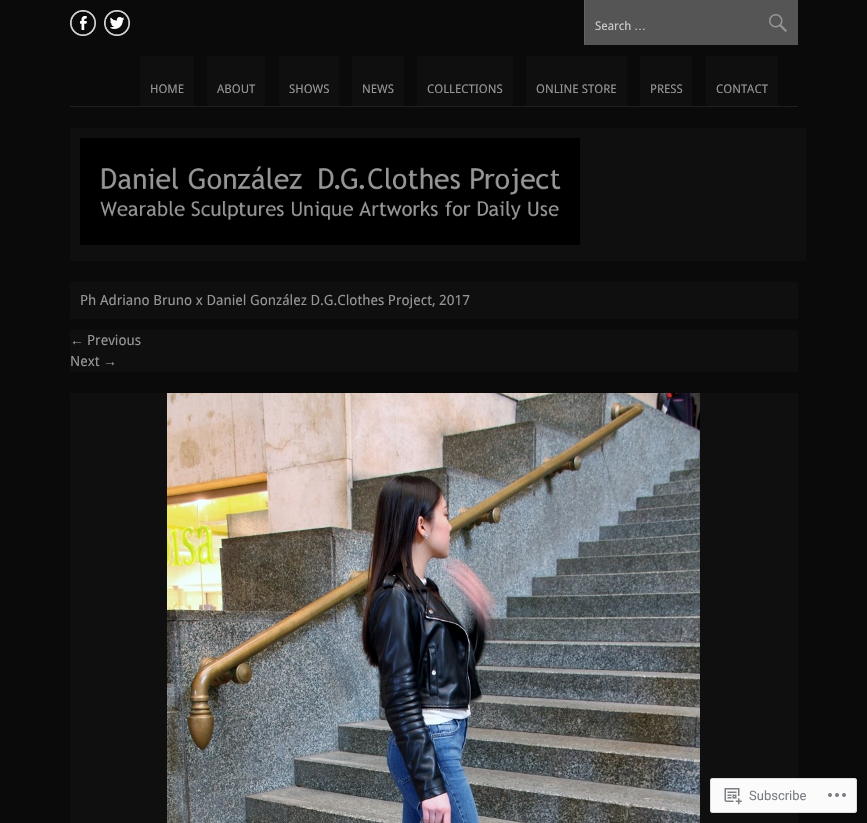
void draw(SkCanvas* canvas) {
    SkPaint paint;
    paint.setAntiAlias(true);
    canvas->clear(0xFF0A0A0A);
    paint.setColor(0xFF202020);
    canvas->drawRect(SkRect::MakeXYWH(70, 106, 728, 1), paint);
    canvas->drawImageRect(SkImages::DeferredFromEncodedData(SkData::MakeFromFileName("img1.png")), SkRect::MakeXYWH(70, 10, 26, 26), SkSamplingOptions());
    canvas->drawImageRect(SkImages::DeferredFromEncodedData(SkData::MakeFromFileName("img2.png")), SkRect::MakeXYWH(80, 16, 7, 14), SkSamplingOptions());
    canvas->drawImageRect(SkImages::DeferredFromEncodedData(SkData::MakeFromFileName("img3.png")), SkRect::MakeXYWH(104, 10, 26, 26), SkSamplingOptions());
    canvas->drawImageRect(SkImages::DeferredFromEncodedData(SkData::MakeFromFileName("img4.png")), SkRect::MakeXYWH(110, 17, 14, 12), SkSamplingOptions());
    paint.setColor(0xFF555555);
    canvas->drawRect(SkRect::MakeXYWH(585, 0, 213, 45), paint);
    paint.setColor(0xFF636363);
    canvas->drawRect(SkRect::MakeXYWH(584, 0, 1, 45), paint);
    SkFont font1(fontMgr->matchFamilyStyle("Droid Sans", SkFontStyle::Normal()), 12);
    font1.setSubpixel(true);
    paint.setColor(0xFFCCCCCC);
    canvas->drawString("Search", 595, 30, font1, paint);
    SkFont font2(fontMgr->matchFamilyStyle("Liberation Sans", SkFontStyle::Normal()), 12);
    font2.setSubpixel(true);
    canvas->drawString("…", 634, 30, font2, paint);
    canvas->drawImageRect(SkImages::DeferredFromEncodedData(SkData::MakeFromFileName("img5.png")), SkRect::MakeXYWH(769, 14, 18, 18), SkSamplingOptions());
    paint.setColor(0xFF0F0F0F);
    canvas->drawRect(SkRect::MakeXYWH(140, 56, 54, 50), paint);
    paint.setColor(0xFF969696);
    canvas->drawString("HOME", 150, 93, font1, paint);
    paint.setColor(0xFF0F0F0F);
    canvas->drawRect(SkRect::MakeXYWH(207, 56, 58, 50), paint);
    paint.setColor(0xFF969696);
    canvas->drawString("ABOUT", 217, 93, font1, paint);
    paint.setColor(0xFF0F0F0F);
    canvas->drawRect(SkRect::MakeXYWH(279, 56, 60, 50), paint);
    paint.setColor(0xFF969696);
    canvas->drawString("SHOWS", 289, 93, font1, paint);
    paint.setColor(0xFF0F0F0F);
    canvas->drawRect(SkRect::MakeXYWH(352, 56, 52, 50), paint);
    paint.setColor(0xFF969696);
    canvas->drawString("NEWS", 362, 93, font1, paint);
    paint.setColor(0xFF0F0F0F);
    canvas->drawRect(SkRect::MakeXYWH(417, 56, 96, 50), paint);
    paint.setColor(0xFF969696);
    canvas->drawString("COLLECTIONS", 427, 93, font1, paint);
    paint.setColor(0xFF0F0F0F);
    canvas->drawRect(SkRect::MakeXYWH(526, 56, 101, 50), paint);
    paint.setColor(0xFF969696);
    canvas->drawString("ONLINE STORE", 536, 93, font1, paint);
    paint.setColor(0xFF0F0F0F);
    canvas->drawRect(SkRect::MakeXYWH(640, 56, 52, 50), paint);
    paint.setColor(0xFF969696);
    canvas->drawString("PRESS", 650, 93, font1, paint);
    paint.setColor(0xFF0F0F0F);
    canvas->drawRect(SkRect::MakeXYWH(706, 56, 72, 50), paint);
    paint.setColor(0xFF969696);
    canvas->drawString("CONTACT", 716, 93, font1, paint);
    paint.setColor(0xFF0F0F0F);
    canvas->drawRect(SkRect::MakeXYWH(70, 128, 736, 133), paint);
    canvas->drawImageRect(SkImages::DeferredFromEncodedData(SkData::MakeFromFileName("img6.png")), SkRect::MakeXYWH(80, 138, 500, 107), SkSamplingOptions());
    canvas->drawRect(SkRect::MakeXYWH(70, 282, 728, 37), paint);
    SkFont font3(fontMgr->matchFamilyStyle("Droid Sans", SkFontStyle::Normal()), 14);
    font3.setSubpixel(true);
    paint.setColor(0xFF969696);
    canvas->drawString("Ph Adriano Bruno x Daniel González D.G.Clothes Project, 2017", 80, 305, font3, paint);
    paint.setColor(0xFF0F0F0F);
    canvas->drawRect(SkRect::MakeXYWH(70, 330, 728, 42), paint);
    SkFont font4(fontMgr->matchFamilyStyle("Liberation Sans", SkFontStyle::Normal()), 14);
    font4.setSubpixel(true);
    paint.setColor(0xFF969696);
    canvas->drawString("←", 70, 345, font4, paint);
    canvas->drawString("Previous", 87, 345, font3, paint);
    canvas->drawString("Next", 70, 366, font3, paint);
    canvas->drawString("→", 103, 366, font4, paint);
    paint.setColor(0xFF0F0F0F);
    canvas->drawRect(SkRect::MakeXYWH(70, 393, 728, 430), paint);
    canvas->drawImageRect(SkImages::DeferredFromEncodedData(SkData::MakeFromFileName("img7.png")), SkRect::MakeXYWH(167, 393, 533, 430), SkSamplingOptions());
    paint.setColor(0xFAFFFFFF);
    canvas->drawRoundRect(SkRect::MakeXYWH(710, 778, 147, 35), 3, 3, paint);
    paint.setStyle(SkPaint::kStroke_Style);
    paint.setStrokeWidth(1);
    paint.setColor(0xFADCDCDE);
    canvas->drawRoundRect(SkRect::MakeXYWH(710.5f, 778.5f, 146, 34), 2.5f, 2.5f, paint);
    canvas->drawImageRect(SkImages::DeferredFromEncodedData(SkData::MakeFromFileName("img8.png")), SkRect::MakeXYWH(724, 788, 18, 17), SkSamplingOptions());
    SkFont font5(fontMgr->matchFamilyStyle("Roboto", SkFontStyle::Normal()), 13);
    font5.setSubpixel(true);
    paint.setStyle(SkPaint::kFill_Style);
    paint.setColor(0xFF7B7F84);
    canvas->drawString("Subscribe", 749, 800, font5, paint);
    canvas->drawImageRect(SkImages::DeferredFromEncodedData(SkData::MakeFromFileName("img9.png")), SkRect::MakeXYWH(828, 793, 18, 4), SkSamplingOptions());
}
